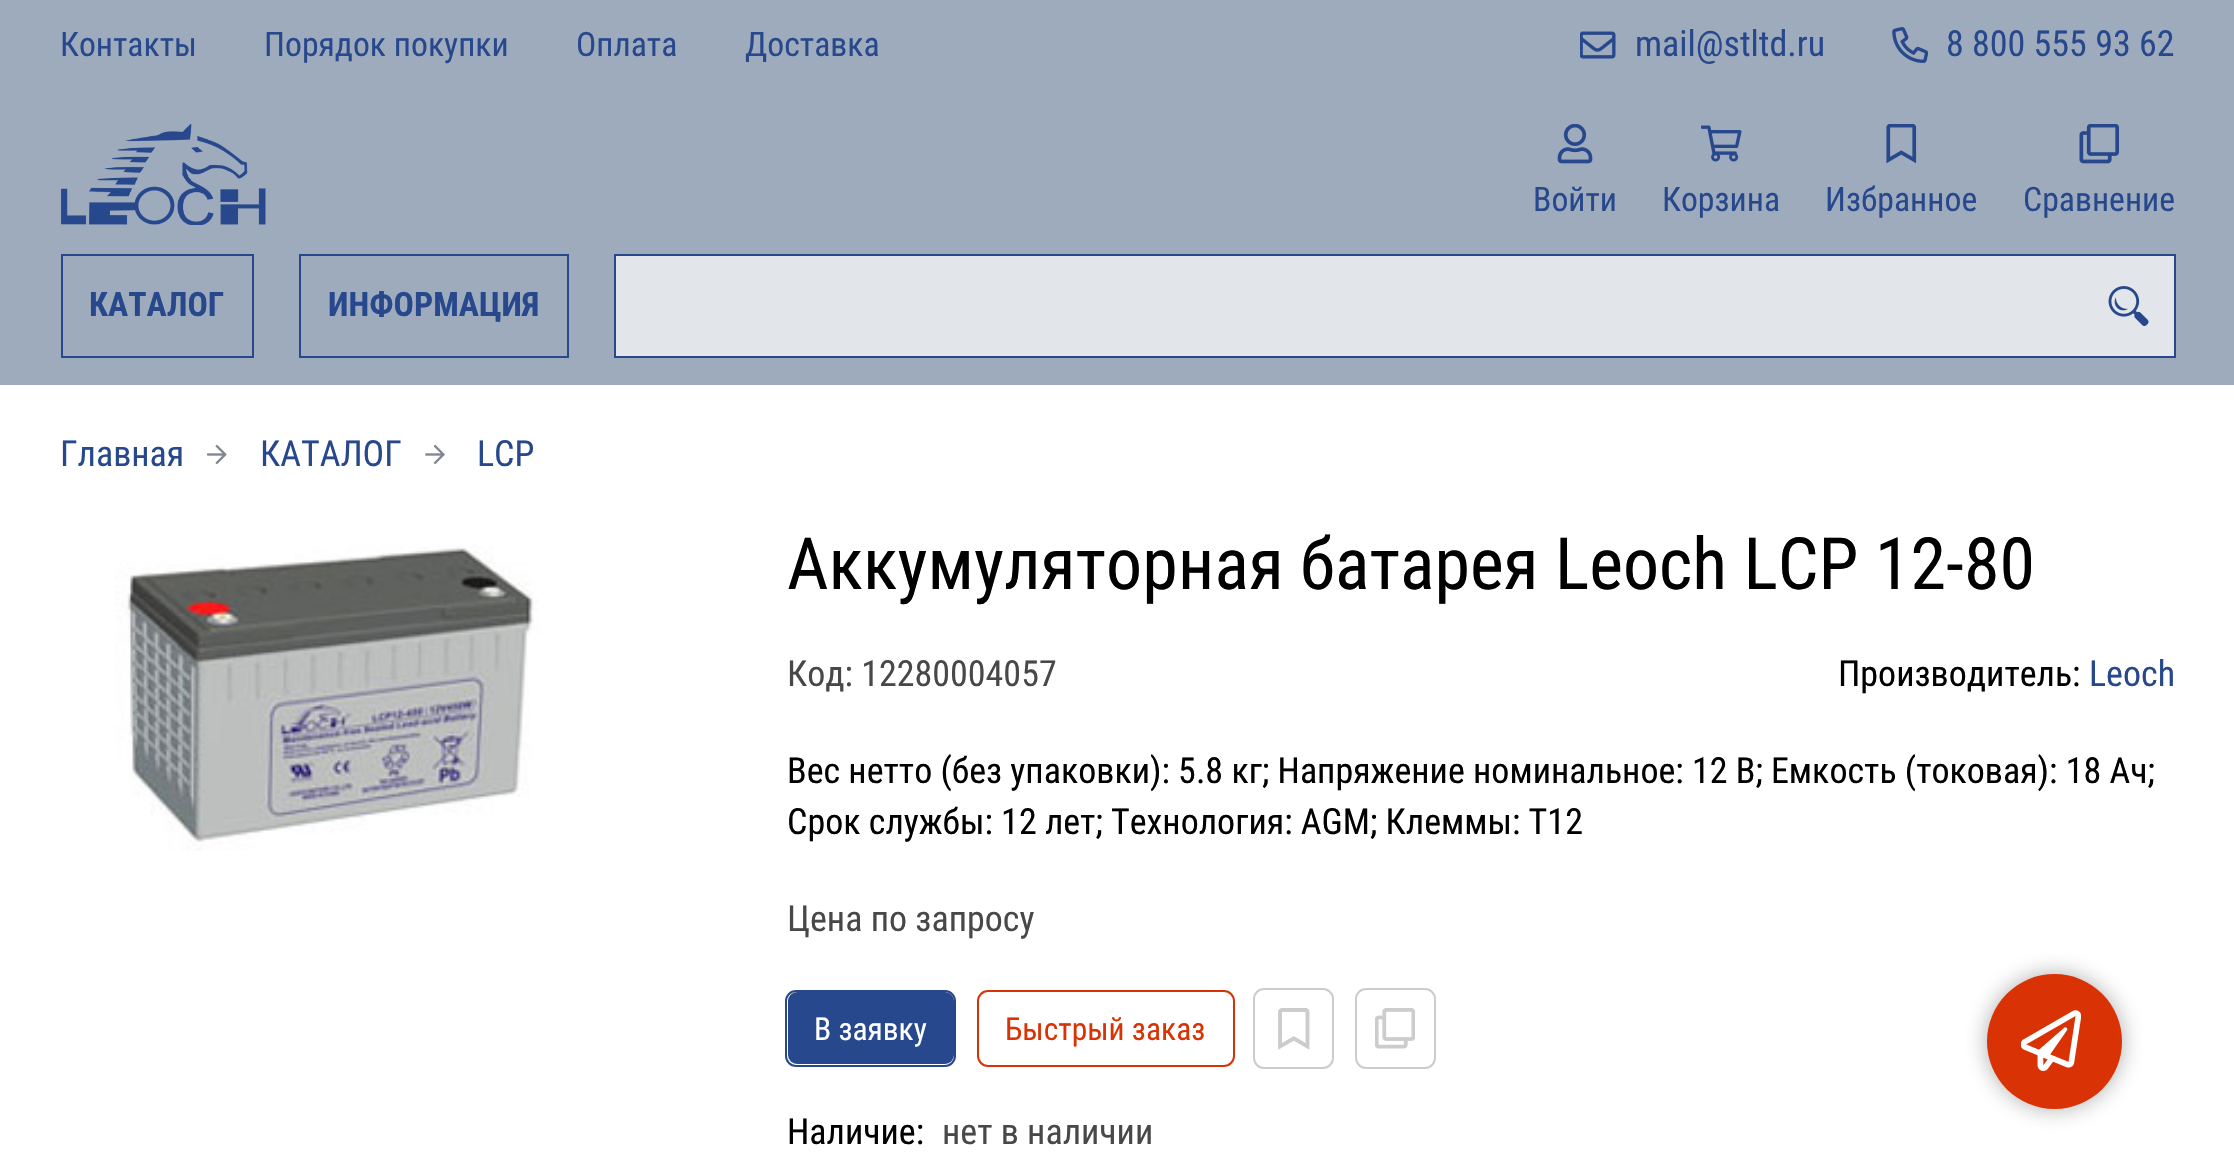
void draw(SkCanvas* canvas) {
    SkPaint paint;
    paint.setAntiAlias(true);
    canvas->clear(0xFFFFFFFF);
    paint.setColor(0xFF9EABBC);
    canvas->drawRect(SkRect::MakeXYWH(0, 0, 2234, 385), paint);
    SkFont font1(fontMgr->matchFamilyStyle("Roboto Condensed", SkFontStyle::Normal()), 33.75f);
    font1.setSubpixel(true);
    paint.setColor(0xFF27488D);
    canvas->drawString("Контакты", 60, 56, font1, paint);
    canvas->drawString("Порядок покупки", 264, 56, font1, paint);
    canvas->drawString("Оплата", 576, 56, font1, paint);
    canvas->drawString("Доставка", 745, 56, font1, paint);
    canvas->drawImageRect(SkImages::DeferredFromEncodedData(SkData::MakeFromFileName("img1.png")), SkRect::MakeXYWH(1580, 31, 36, 28), SkSamplingOptions());
    SkFont font2(fontMgr->matchFamilyStyle("Roboto Condensed", SkFontStyle::Normal()), 36);
    font2.setSubpixel(true);
    canvas->drawString("mail@stltd.ru", 1635, 56, font2, paint);
    canvas->drawImageRect(SkImages::DeferredFromEncodedData(SkData::MakeFromFileName("img2.png")), SkRect::MakeXYWH(1892, 27, 36, 36), SkSamplingOptions());
    canvas->drawString("8 800 555 93 62", 1946, 56, font2, paint);
    canvas->drawImageRect(SkImages::DeferredFromEncodedData(SkData::MakeFromFileName("img3.png")), SkRect::MakeXYWH(60, 124, 206, 101), SkSamplingOptions());
    canvas->drawImageRect(SkImages::DeferredFromEncodedData(SkData::MakeFromFileName("img4.png")), SkRect::MakeXYWH(1557, 124, 36, 40), SkSamplingOptions());
    canvas->drawString("Войти", 1533, 211, font1, paint);
    canvas->drawImageRect(SkImages::DeferredFromEncodedData(SkData::MakeFromFileName("img5.png")), SkRect::MakeXYWH(1701, 125, 41, 37), SkSamplingOptions());
    canvas->drawString("Корзина", 1662, 211, font1, paint);
    canvas->drawImageRect(SkImages::DeferredFromEncodedData(SkData::MakeFromFileName("img6.png")), SkRect::MakeXYWH(1886, 124, 31, 40), SkSamplingOptions());
    canvas->drawString("Избранное", 1825, 211, font1, paint);
    canvas->drawImageRect(SkImages::DeferredFromEncodedData(SkData::MakeFromFileName("img7.png")), SkRect::MakeXYWH(2079, 124, 40, 40), SkSamplingOptions());
    canvas->drawString("Сравнение", 2023, 211, font1, paint);
    paint.setStyle(SkPaint::kStroke_Style);
    paint.setStrokeWidth(2);
    canvas->drawRect(SkRect::MakeXYWH(62, 255, 191, 102), paint);
    SkFont font3(fontMgr->matchFamilyStyle("Roboto Condensed", SkFontStyle::Bold()), 33.75f);
    font3.setSubpixel(true);
    paint.setStyle(SkPaint::kFill_Style);
    canvas->drawString("КАТАЛОГ", 89, 316, font3, paint);
    paint.setStyle(SkPaint::kStroke_Style);
    canvas->drawRect(SkRect::MakeXYWH(300, 255, 268, 102), paint);
    paint.setStyle(SkPaint::kFill_Style);
    canvas->drawString("ИНФОРМАЦИЯ", 328, 316, font3, paint);
    paint.setColor(0xFFE2E6EB);
    canvas->drawRect(SkRect::MakeXYWH(615, 255, 1560, 102), paint);
    paint.setStyle(SkPaint::kStroke_Style);
    paint.setColor(0xFF27488D);
    canvas->drawRect(SkRect::MakeXYWH(615, 255, 1560, 102), paint);
    canvas->drawImageRect(SkImages::DeferredFromEncodedData(SkData::MakeFromFileName("img8.png")), SkRect::MakeXYWH(2108, 286, 41, 40), SkSamplingOptions());
    paint.setStyle(SkPaint::kFill_Style);
    canvas->drawString("Главная", 60, 466, font2, paint);
    canvas->drawImageRect(SkImages::DeferredFromEncodedData(SkData::MakeFromFileName("img9.png")), SkRect::MakeXYWH(207, 444, 20, 21), SkSamplingOptions());
    canvas->drawString("КАТАЛОГ", 260, 466, font2, paint);
    canvas->drawImageRect(SkImages::DeferredFromEncodedData(SkData::MakeFromFileName("img10.png")), SkRect::MakeXYWH(425, 444, 20, 21), SkSamplingOptions());
    canvas->drawString("LCP", 477, 466, font2, paint);
    canvas->drawImageRect(SkImages::DeferredFromEncodedData(SkData::MakeFromFileName("img11.png")), SkRect::MakeXYWH(115, 544, 424, 307), SkSamplingOptions());
    SkFont font4(fontMgr->matchFamilyStyle("Roboto Condensed", SkFontStyle::Normal()), 72);
    font4.setSubpixel(true);
    paint.setColor(0xFF000000);
    canvas->drawString("Аккумуляторная батарея Leoch LCP 12-80", 787, 589, font4, paint);
    paint.setColor(0xFF484848);
    canvas->drawString("Код: 12280004057", 787, 686, font2, paint);
    paint.setColor(0xFF000000);
    canvas->drawString("Производитель:", 1838, 686, font2, paint);
    paint.setColor(0xFF27488D);
    canvas->drawString("Leoch", 2089, 686, font2, paint);
    paint.setColor(0xFF000000);
    canvas->drawString("Вес нетто (без упаковки): 5.8 кг; Напряжение номинальное: 12 В; Емкость (токовая): 18 Ач;", 787, 783, font2, paint);
    canvas->drawString("Срок службы: 12 лет; Технология: AGM; Клеммы: T12", 787, 834, font2, paint);
    paint.setColor(0xFF484848);
    canvas->drawString("Цена по запросу", 787, 931, font2, paint);
    paint.setColor(0xFF27488D);
    canvas->drawRoundRect(SkRect::MakeXYWH(788, 992, 166, 72), 9, 9, paint);
    paint.setStyle(SkPaint::kStroke_Style);
    canvas->drawRoundRect(SkRect::MakeXYWH(786, 991, 169, 75), 10, 10, paint);
    SkFont font5(fontMgr->matchFamilyStyle("Roboto Condensed", SkFontStyle::Normal()), 31.5f);
    font5.setSubpixel(true);
    paint.setStyle(SkPaint::kFill_Style);
    paint.setColor(0xFFFFFFFF);
    canvas->drawString("В заявку", 814, 1040, font5, paint);
    paint.setStyle(SkPaint::kStroke_Style);
    paint.setColor(0xFFD93305);
    canvas->drawRoundRect(SkRect::MakeXYWH(978, 991, 256, 75), 10, 10, paint);
    paint.setStyle(SkPaint::kFill_Style);
    canvas->drawString("Быстрый заказ", 1005, 1040, font5, paint);
    canvas->drawImageRect(SkImages::DeferredFromEncodedData(SkData::MakeFromFileName("img12.png")), SkRect::MakeXYWH(1278, 1008, 32, 42), SkSamplingOptions());
    paint.setStyle(SkPaint::kStroke_Style);
    paint.setColor(0xFFCCCCCC);
    canvas->drawRoundRect(SkRect::MakeXYWH(1254, 989, 79, 79), 10, 10, paint);
    canvas->drawImageRect(SkImages::DeferredFromEncodedData(SkData::MakeFromFileName("img13.png")), SkRect::MakeXYWH(1375, 1008, 40, 41), SkSamplingOptions());
    canvas->drawRoundRect(SkRect::MakeXYWH(1356, 989, 79, 79), 10, 10, paint);
    paint.setStyle(SkPaint::kFill_Style);
    paint.setColor(0xFF000000);
    canvas->drawString("Наличие:", 787, 1144, font2, paint);
    paint.setColor(0xFF484848);
    canvas->drawString("нет в наличии", 942, 1144, font2, paint);
    paint.setColor(0x66323232);
    paint.setMaskFilter(SkMaskFilter::MakeBlur(kNormal_SkBlurStyle, 11));
    canvas->drawRoundRect(SkRect::MakeXYWH(1987, 974, 135, 135), 67.5f, 67.5f, paint);
    paint.setMaskFilter(nullptr);
    paint.setColor(0xFFD93305);
    canvas->drawCircle(2054.5f, 1041.5f, 67.5f, paint);
    canvas->drawImageRect(SkImages::DeferredFromEncodedData(SkData::MakeFromFileName("img14.png")), SkRect::MakeXYWH(2021, 1010, 60, 61), SkSamplingOptions());
}
